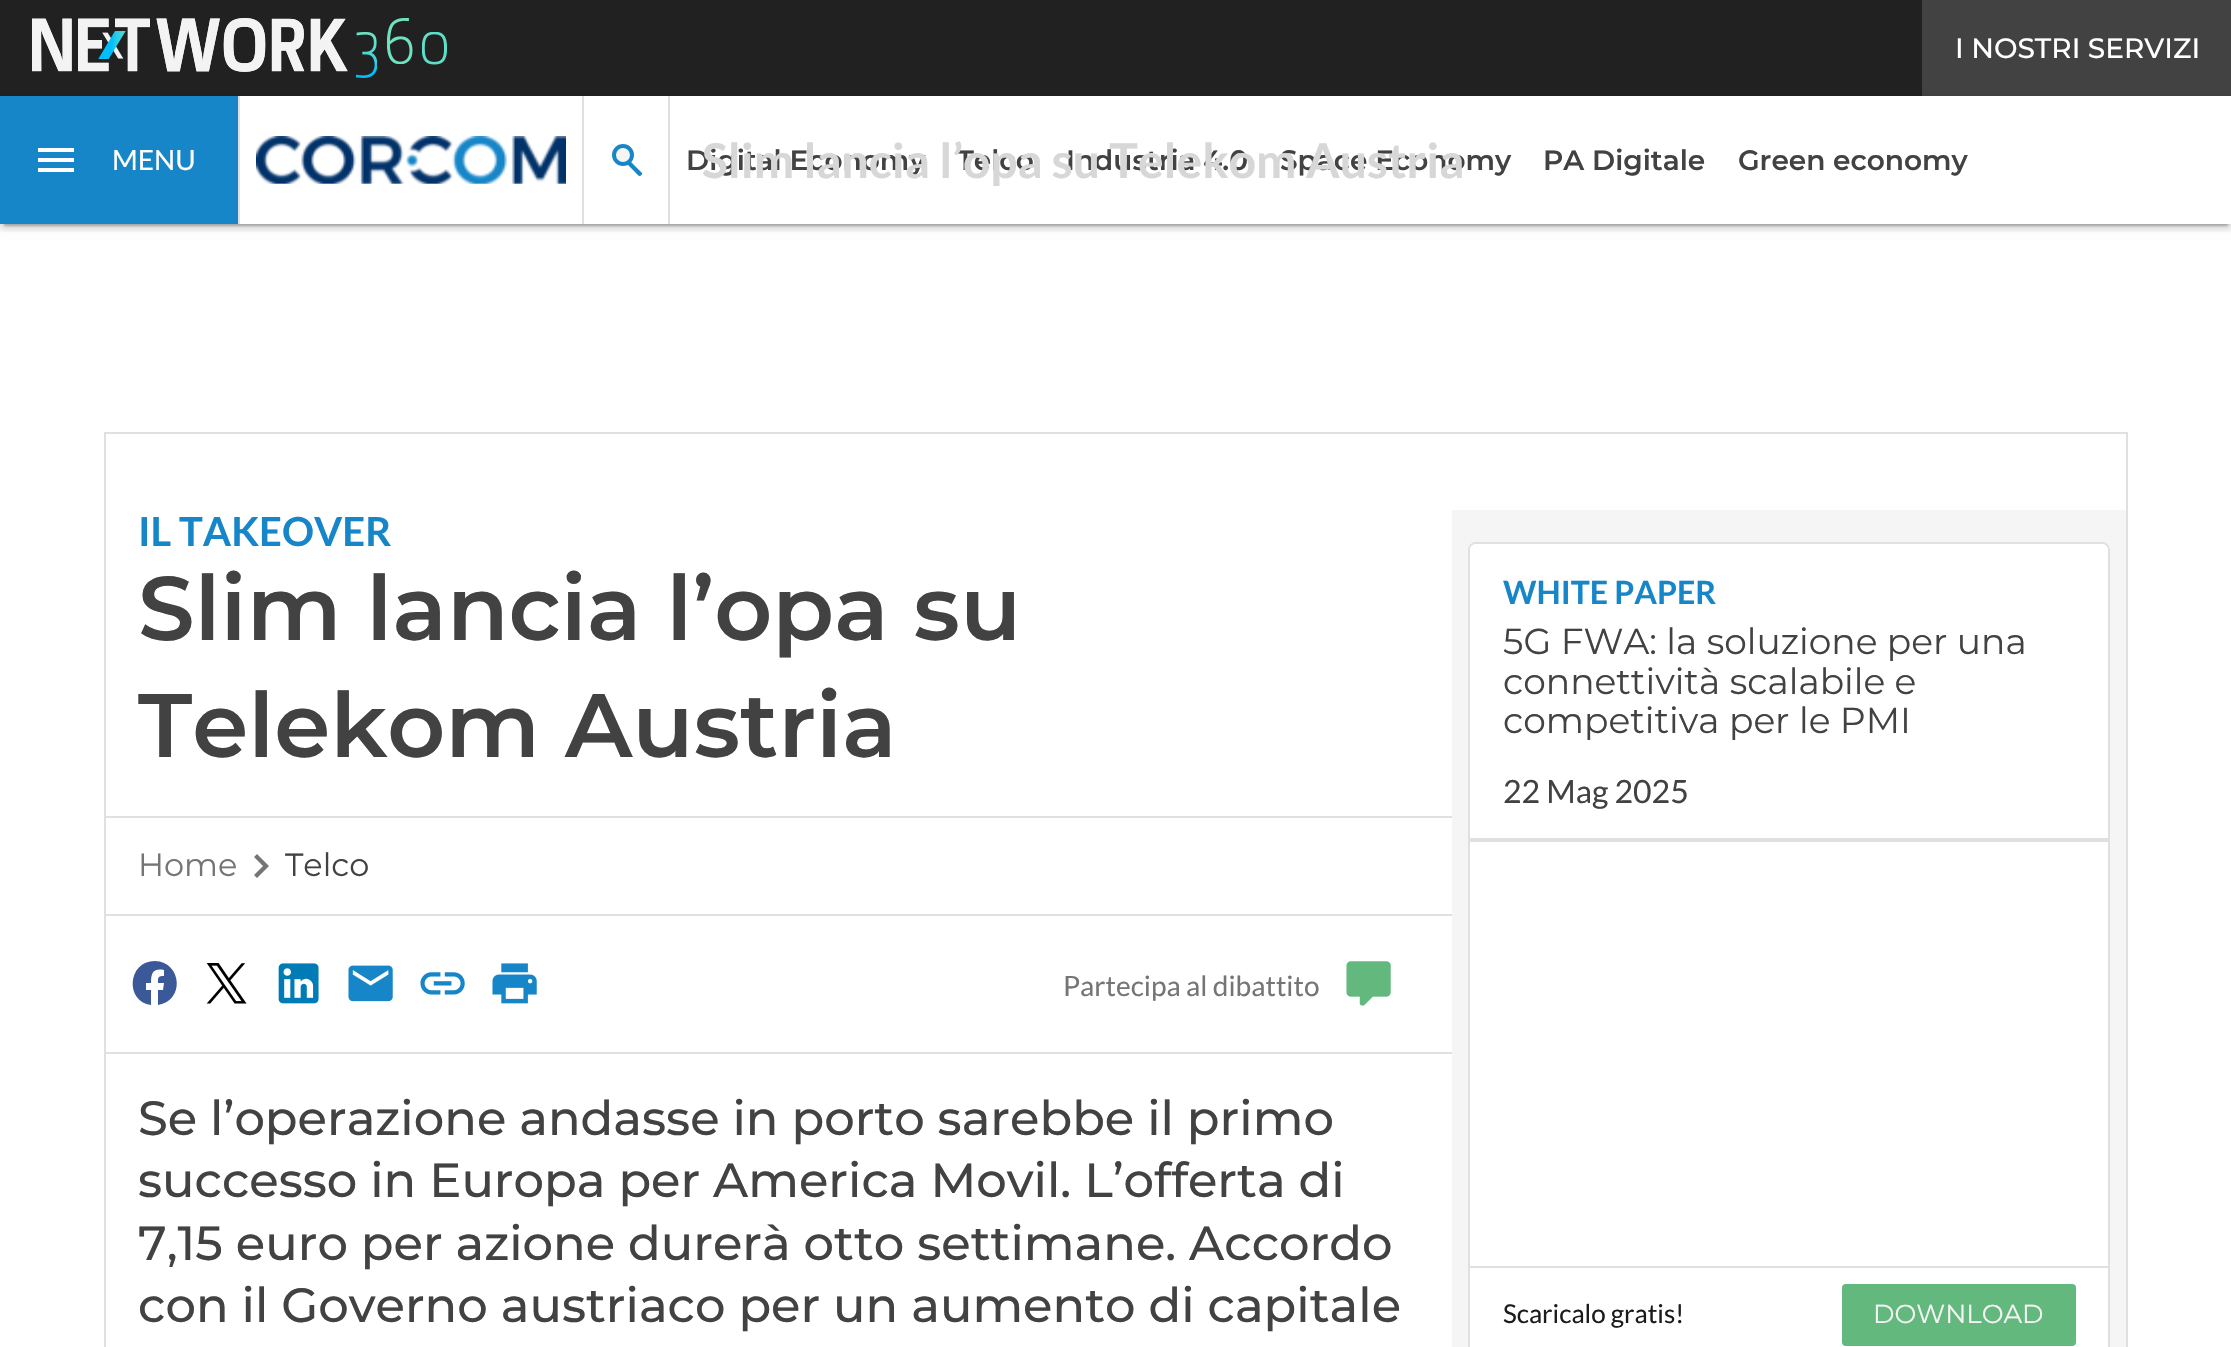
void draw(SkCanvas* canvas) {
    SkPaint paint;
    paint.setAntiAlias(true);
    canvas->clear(0xFFFFFFFF);
    paint.setColor(0xFF212121);
    canvas->drawRect(SkRect::MakeXYWH(0, 0, 1922, 96), paint);
    canvas->drawImageRect(SkImages::DeferredFromEncodedData(SkData::MakeFromFileName("img1.png")), SkRect::MakeXYWH(32, 18, 415, 60), SkSamplingOptions());
    paint.setColor(0xFF424242);
    canvas->drawRect(SkRect::MakeXYWH(1922, 0, 309, 96), paint);
    SkFont font1(fontMgr->matchFamilyStyle("Montserrat", SkFontStyle(500, SkFontStyle::kNormal_Width, SkFontStyle::kUpright_Slant)), 28);
    font1.setSubpixel(true);
    paint.setColor(0xFFFFFFFF);
    canvas->drawString("I NOSTRI SERVIZI", 1955, 58, font1, paint);
    canvas->save();
    canvas->clipRect(SkRect::MakeXYWH(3, 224, 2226, 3));
    paint.setColor(0x33000000);
    paint.setMaskFilter(SkMaskFilter::MakeBlur(kNormal_SkBlurStyle, 1));
    canvas->drawRect(SkRect::MakeXYWH(4, 106, 2224, 120), paint);
    paint.setMaskFilter(nullptr);
    canvas->restore();
    canvas->save();
    canvas->clipPath(SkPathBuilder(SkPathFillType::kEvenOdd).moveTo(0, 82).lineTo(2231, 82).lineTo(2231, 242).lineTo(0, 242).close().moveTo(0, 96).lineTo(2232, 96).lineTo(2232, 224).lineTo(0, 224).close().detach(), true);
    paint.setColor(0x1F000000);
    paint.setMaskFilter(SkMaskFilter::MakeBlur(kNormal_SkBlurStyle, 5));
    canvas->drawRect(SkRect::MakeXYWH(0, 98, 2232, 128), paint);
    paint.setMaskFilter(nullptr);
    canvas->restore();
    canvas->save();
    canvas->clipRect(SkRect::MakeXYWH(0, 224, 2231, 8));
    paint.setColor(0x24000000);
    paint.setMaskFilter(SkMaskFilter::MakeBlur(kNormal_SkBlurStyle, 4));
    canvas->drawRect(SkRect::MakeXYWH(0, 100, 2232, 128), paint);
    paint.setMaskFilter(nullptr);
    canvas->restore();
    canvas->drawImageRect(SkImages::DeferredFromEncodedData(SkData::MakeFromFileName("img2.png")), SkRect::MakeXYWH(256, 136, 310, 48), SkSamplingOptions());
    paint.setColor(0xFFE0E0E0);
    canvas->drawRect(SkRect::MakeXYWH(668, 96, 2, 128), paint);
    canvas->drawRect(SkRect::MakeXYWH(582, 96, 2, 128), paint);
    paint.setColor(0xFF1786C8);
    canvas->drawPath(SkPathBuilder().moveTo(621.5f, 152.5f).lineTo(642, 173).cubicTo(642.5f, 174.5f, 641, 176, 639.5f, 176).cubicTo(638, 175.5f, 635, 172, 635, 172).lineTo(618.5f, 155.5f).cubicTo(617, 153.5f, 619.5f, 151, 621.5f, 152.5f).close().detach(), paint);
    paint.setColor(0xFFF5F5F5);
    canvas->drawCircle(623, 155, 9, paint);
    paint.setStyle(SkPaint::kStroke_Style);
    paint.setStrokeWidth(4);
    paint.setColor(0xFF1786C8);
    canvas->drawCircle(623, 155, 9, paint);
    SkFont font2(fontMgr->matchFamilyStyle("Montserrat", SkFontStyle(600, SkFontStyle::kNormal_Width, SkFontStyle::kUpright_Slant)), 28);
    font2.setSubpixel(true);
    paint.setStyle(SkPaint::kFill_Style);
    paint.setColor(0xFF424242);
    canvas->drawString("Digital Economy", 686, 170, font2, paint);
    canvas->drawString("Telco", 957, 170, font2, paint);
    canvas->drawString("Industria 4.0", 1066, 170, font2, paint);
    canvas->drawString("Space Economy", 1280, 170, font2, paint);
    SkFont font3(fontMgr->matchFamilyStyle("Lato", SkFontStyle::Bold()), 48);
    font3.setSubpixel(true);
    paint.setColor(0xFFD7D7D7);
    canvas->drawString("Slim lancia l’opa su Telekom Austria", 702, 178, font3, paint);
    paint.setColor(0xFF1786C8);
    canvas->drawRect(SkRect::MakeXYWH(0, 96, 238, 128), paint);
    paint.setColor(0xFFE0E0E0);
    canvas->drawRect(SkRect::MakeXYWH(238, 96, 2, 128), paint);
    paint.setColor(0xFFFFFFFF);
    canvas->drawPath(SkPathBuilder().moveTo(38, 172).lineTo(38, 168).lineTo(74, 168).lineTo(74, 172).close().moveTo(38, 162).lineTo(38, 158).lineTo(74, 158).lineTo(74, 162).close().moveTo(38, 152).lineTo(38, 148).lineTo(74, 148).lineTo(74, 152).close().detach(), paint);
    SkFont font4(fontMgr->matchFamilyStyle("Lato", SkFontStyle::Normal()), 28);
    font4.setSubpixel(true);
    canvas->drawString("MENU", 112, 170, font4, paint);
    paint.setColor(0xFF424242);
    canvas->drawString("PA Digitale", 1543, 170, font2, paint);
    canvas->drawString("Green economy", 1738, 170, font2, paint);
    paint.setColor(0xFFE0E0E0);
    canvas->drawRect(SkRect::MakeXYWH(106, 816, 1346, 2), paint);
    paint.setColor(0xFF757575);
    canvas->drawPath(SkPathBuilder().moveTo(263, 866).lineTo(254, 857).lineTo(257, 854).lineTo(269, 866).lineTo(257, 878).lineTo(254, 875).close().detach(), paint);
    paint.setColor(0xFFE0E0E0);
    canvas->drawRect(SkRect::MakeXYWH(106, 914, 1346, 2), paint);
    canvas->drawRect(SkRect::MakeXYWH(106, 1052, 1346, 2), paint);
    paint.setColor(0xFF3B5998);
    canvas->drawPath(SkPathBuilder().moveTo(155, 961).cubicTo(127, 961, 125, 1002, 151, 1005).lineTo(151, 990).lineTo(146, 990).lineTo(146, 983).lineTo(151, 983).cubicTo(151, 973, 153, 968, 164, 970).lineTo(164, 976).cubicTo(158, 976, 158, 977, 158, 983).lineTo(164, 983).lineTo(163, 990).lineTo(158, 990).lineTo(158, 1005).cubicTo(185, 1001, 182, 962, 155, 961).close().detach(), paint);
    canvas->drawImageRect(SkImages::DeferredFromEncodedData(SkData::MakeFromFileName("img3.png")), SkRect::MakeXYWH(206, 963, 41, 41), SkSamplingOptions());
    canvas->drawImageRect(SkImages::DeferredFromEncodedData(SkData::MakeFromFileName("img4.png")), SkRect::MakeXYWH(278, 963, 41, 41), SkSamplingOptions());
    canvas->drawImageRect(SkImages::DeferredFromEncodedData(SkData::MakeFromFileName("img5.png")), SkRect::MakeXYWH(348, 965, 45, 37), SkSamplingOptions());
    canvas->drawImageRect(SkImages::DeferredFromEncodedData(SkData::MakeFromFileName("img6.png")), SkRect::MakeXYWH(420, 972, 45, 23), SkSamplingOptions());
    canvas->drawImageRect(SkImages::DeferredFromEncodedData(SkData::MakeFromFileName("img7.png")), SkRect::MakeXYWH(492, 963, 45, 41), SkSamplingOptions());
    canvas->drawImageRect(SkImages::DeferredFromEncodedData(SkData::MakeFromFileName("img8.png")), SkRect::MakeXYWH(1346, 961, 45, 45), SkSamplingOptions());
    paint.setColor(0xFFF5F5F5);
    canvas->drawRect(SkRect::MakeXYWH(1452, 510, 674, 837), paint);
    paint.setStyle(SkPaint::kStroke_Style);
    paint.setStrokeWidth(2);
    paint.setColor(0xFFE0E0E0);
    canvas->drawRect(SkRect::MakeXYWH(105, 433, 2022, 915), paint);
    SkFont font5(fontMgr->matchFamilyStyle("Lato", SkFontStyle::Bold()), 40);
    font5.setSubpixel(true);
    paint.setStyle(SkPaint::kFill_Style);
    paint.setColor(0xFF1786C8);
    canvas->drawString("IL TAKEOVER", 138, 546, font5, paint);
    SkFont font6(fontMgr->matchFamilyStyle("Montserrat", SkFontStyle(600, SkFontStyle::kNormal_Width, SkFontStyle::kUpright_Slant)), 90);
    font6.setSubpixel(true);
    paint.setColor(0xFF424242);
    canvas->drawString("Slim lancia l’opa su", 138, 640, font6, paint);
    canvas->drawString("Telekom Austria", 138, 757, font6, paint);
    SkFont font7(fontMgr->matchFamilyStyle("Montserrat", SkFontStyle::Normal()), 32);
    font7.setSubpixel(true);
    paint.setColor(0xFF757575);
    canvas->drawString("Home", 138, 876, font7, paint);
    paint.setColor(0xFF424242);
    canvas->drawString("Telco", 285, 876, font7, paint);
    paint.setColor(0xFF757575);
    canvas->drawString("Partecipa al dibattito", 1063, 996, font4, paint);
    SkFont font8(fontMgr->matchFamilyStyle("Montserrat", SkFontStyle(500, SkFontStyle::kNormal_Width, SkFontStyle::kUpright_Slant)), 48);
    font8.setSubpixel(true);
    paint.setColor(0xFF424242);
    canvas->drawString("Se l’operazione andasse in porto sarebbe il primo", 138, 1135, font8, paint);
    canvas->drawString("successo in Europa per America Movil. L’offerta di", 138, 1197, font8, paint);
    canvas->drawString("7,15 euro per azione durerà otto settimane. Accordo", 138, 1260, font8, paint);
    canvas->drawString("con il Governo austriaco per un aumento di capitale", 138, 1322, font8, paint);
    paint.setStyle(SkPaint::kStroke_Style);
    paint.setColor(0xFFE0E0E0);
    canvas->drawRoundRect(SkRect::MakeXYWH(1469, 543, 640, 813), 7, 7, paint);
    paint.setStyle(SkPaint::kFill_Style);
    canvas->drawRect(SkRect::MakeXYWH(1470, 840, 638, 2), paint);
    paint.setColor(0xFFFFFFFF);
    canvas->drawPath(SkPathBuilder().moveTo(1476, 544).lineTo(2102, 544).cubicTo(2105.5f, 544, 2108, 546.5f, 2108, 550).lineTo(2108, 840).lineTo(1470, 840).lineTo(1470, 550).cubicTo(1470, 546.5f, 1472.5f, 544, 1476, 544).close().detach(), paint);
    paint.setColor(0xFFE0E0E0);
    canvas->drawRect(SkRect::MakeXYWH(1470, 838, 638, 2), paint);
    SkFont font9(fontMgr->matchFamilyStyle("Lato", SkFontStyle::Bold()), 32);
    font9.setSubpixel(true);
    paint.setColor(0xFF1786C8);
    canvas->drawString("WHITE PAPER", 1503, 604, font9, paint);
    SkFont font10(fontMgr->matchFamilyStyle("Montserrat", SkFontStyle::Normal()), 36);
    font10.setSubpixel(true);
    paint.setColor(0xFF424242);
    canvas->drawString("5G FWA: la soluzione per una", 1503, 654, font10, paint);
    canvas->drawString("connettività scalabile e", 1503, 694, font10, paint);
    canvas->drawString("competitiva per le PMI", 1503, 733, font10, paint);
    SkFont font11(fontMgr->matchFamilyStyle("Lato", SkFontStyle::Normal()), 32);
    font11.setSubpixel(true);
    canvas->drawString("22 Mag 2025", 1503, 803, font11, paint);
    paint.setColor(0xFFFFFFFF);
    canvas->drawRect(SkRect::MakeXYWH(1470, 842, 638, 424), paint);
    paint.setColor(0xFFE0E0E0);
    canvas->drawRect(SkRect::MakeXYWH(1470, 1266, 638, 2), paint);
    paint.setColor(0xFFFFFFFF);
    canvas->drawRect(SkRect::MakeXYWH(1470, 1268, 638, 79), paint);
    SkFont font12(fontMgr->matchFamilyStyle("Lato", SkFontStyle::Normal()), 26);
    font12.setSubpixel(true);
    paint.setColor(0xFF1A1C1E);
    canvas->drawString("Scaricalo gratis!", 1503, 1323, font12, paint);
    paint.setColor(0xFF62B87D);
    canvas->drawRoundRect(SkRect::MakeXYWH(1842, 1284, 234, 62), 4, 4, paint);
    SkFont font13(fontMgr->matchFamilyStyle("Montserrat", SkFontStyle::Normal()), 26);
    font13.setSubpixel(true);
    paint.setColor(0xFFF5F5F5);
    canvas->drawString("DOWNLOAD", 1873, 1323, font13, paint);
}
